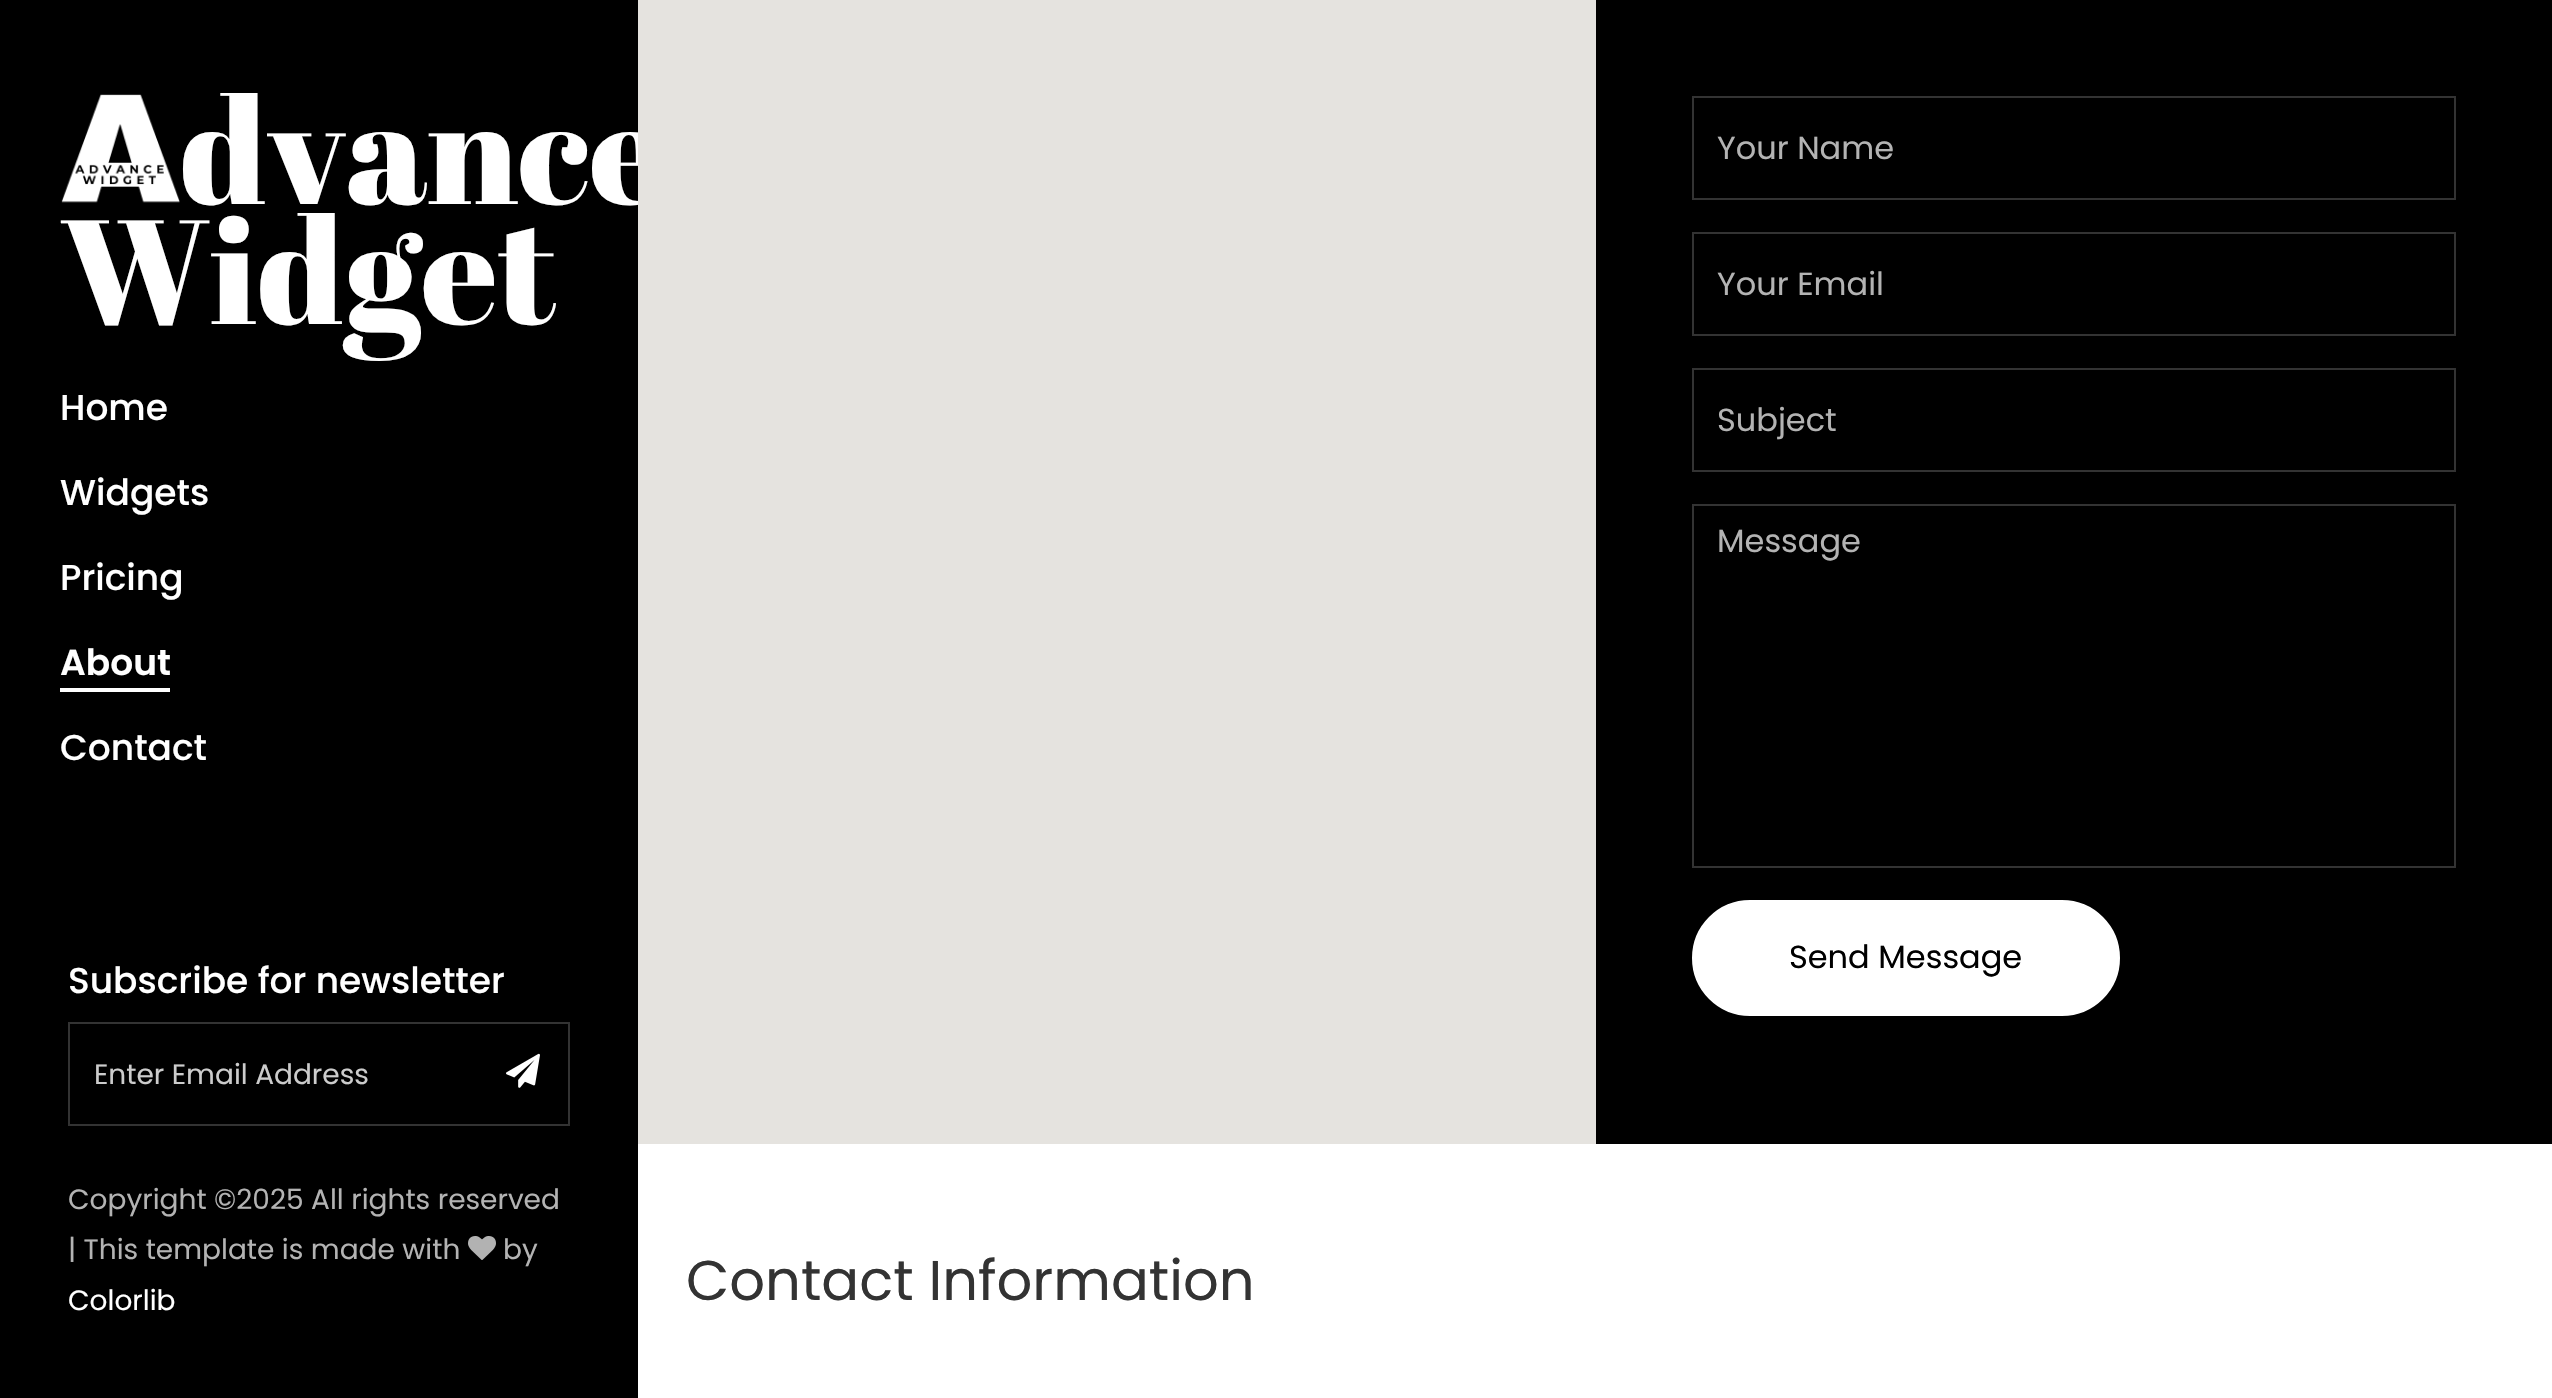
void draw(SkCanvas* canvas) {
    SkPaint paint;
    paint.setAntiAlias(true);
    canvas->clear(0xFFFFFFFF);
    paint.setColor(0xFF000000);
    canvas->drawRect(SkRect::MakeXYWH(0, 0, 638, 1398), paint);
    canvas->drawImageRect(SkImages::DeferredFromEncodedData(SkData::MakeFromFileName("img1.png")), SkRect::MakeXYWH(61, 94, 119, 109), SkSamplingOptions());
    canvas->save();
    canvas->clipRect(SkRect::MakeXYWH(0, 0, 638, 1398));
    SkFont font1(fontMgr->matchFamilyStyle("Abril Fatface", SkFontStyle::Normal()), 148);
    font1.setSubpixel(true);
    paint.setColor(0xFFFFFFFF);
    canvas->drawString("dvance", 180, 204, font1, paint);
    canvas->restore();
    canvas->drawString("Widget", 60, 324, font1, paint);
    SkFont font2(fontMgr->matchFamilyStyle("Poppins", SkFontStyle(500, SkFontStyle::kNormal_Width, SkFontStyle::kUpright_Slant)), 36);
    font2.setSubpixel(true);
    canvas->drawString("Home", 60, 420, font2, paint);
    canvas->drawString("Widgets", 60, 505, font2, paint);
    canvas->drawString("Pricing", 60, 590, font2, paint);
    SkFont font3(fontMgr->matchFamilyStyle("Poppins", SkFontStyle(600, SkFontStyle::kNormal_Width, SkFontStyle::kUpright_Slant)), 36);
    font3.setSubpixel(true);
    canvas->drawString("About", 60, 675, font3, paint);
    canvas->drawRect(SkRect::MakeXYWH(60, 688, 110, 4), paint);
    canvas->drawString("Contact", 60, 760, font2, paint);
    canvas->drawString("Subscribe for newsletter", 68, 993, font2, paint);
    paint.setStyle(SkPaint::kStroke_Style);
    paint.setStrokeWidth(2);
    paint.setColor(0xFF333333);
    canvas->drawRect(SkRect::MakeXYWH(69, 1023, 500, 102), paint);
    SkFont font4(fontMgr->matchFamilyStyle("Poppins", SkFontStyle::Normal()), 28);
    font4.setSubpixel(true);
    paint.setStyle(SkPaint::kFill_Style);
    paint.setColor(0xFFCCCCCC);
    canvas->drawString("Enter Email Address", 94, 1084, font4, paint);
    canvas->drawImageRect(SkImages::DeferredFromEncodedData(SkData::MakeFromFileName("img2.png")), SkRect::MakeXYWH(506, 1053, 34, 35), SkSamplingOptions());
    paint.setColor(0xFFB3B3B3);
    canvas->drawString("Copyright ©2025 All rights reserved", 68, 1209, font4, paint);
    canvas->drawString("| This template is made with", 68, 1259, font4, paint);
    canvas->drawImageRect(SkImages::DeferredFromEncodedData(SkData::MakeFromFileName("img3.png")), SkRect::MakeXYWH(468, 1236, 28, 24), SkSamplingOptions());
    canvas->drawString("by", 503, 1259, font4, paint);
    paint.setColor(0xFFFFFFFF);
    canvas->drawString("Colorlib", 68, 1310, font4, paint);
    paint.setColor(0xFFE5E3DF);
    canvas->drawRect(SkRect::MakeXYWH(638, 0, 958, 1144), paint);
    paint.setColor(0xFF000000);
    canvas->drawRect(SkRect::MakeXYWH(1596, 0, 956, 1144), paint);
    paint.setStyle(SkPaint::kStroke_Style);
    paint.setColor(0xFF333333);
    canvas->drawRect(SkRect::MakeXYWH(1693, 97, 762, 102), paint);
    SkFont font5(fontMgr->matchFamilyStyle("Poppins", SkFontStyle::Normal()), 32);
    font5.setSubpixel(true);
    paint.setStyle(SkPaint::kFill_Style);
    paint.setColor(0xFFB3B3B3);
    canvas->drawString("Your Name", 1717, 159, font5, paint);
    paint.setStyle(SkPaint::kStroke_Style);
    paint.setColor(0xFF333333);
    canvas->drawRect(SkRect::MakeXYWH(1693, 233, 762, 102), paint);
    paint.setStyle(SkPaint::kFill_Style);
    paint.setColor(0xFFB3B3B3);
    canvas->drawString("Your Email", 1717, 295, font5, paint);
    paint.setStyle(SkPaint::kStroke_Style);
    paint.setColor(0xFF333333);
    canvas->drawRect(SkRect::MakeXYWH(1693, 369, 762, 102), paint);
    paint.setStyle(SkPaint::kFill_Style);
    paint.setColor(0xFFB3B3B3);
    canvas->drawString("Subject", 1717, 431, font5, paint);
    paint.setStyle(SkPaint::kStroke_Style);
    paint.setColor(0xFF333333);
    canvas->drawRect(SkRect::MakeXYWH(1693, 505, 762, 362), paint);
    paint.setStyle(SkPaint::kFill_Style);
    paint.setColor(0xFFB3B3B3);
    canvas->drawString("Message", 1717, 552, font5, paint);
    paint.setColor(0xFFFFFFFF);
    canvas->drawRoundRect(SkRect::MakeXYWH(1693, 901, 426, 114), 57, 57, paint);
    paint.setStyle(SkPaint::kStroke_Style);
    canvas->drawRoundRect(SkRect::MakeXYWH(1693, 901, 426, 114), 57, 57, paint);
    paint.setStyle(SkPaint::kFill_Style);
    paint.setColor(0xFF000000);
    canvas->drawString("Send Message", 1789, 968, font5, paint);
    SkFont font6(fontMgr->matchFamilyStyle("Poppins", SkFontStyle::Normal()), 56);
    font6.setSubpixel(true);
    paint.setColor(0xFF333333);
    canvas->drawString("Contact Information", 686, 1300, font6, paint);
}
